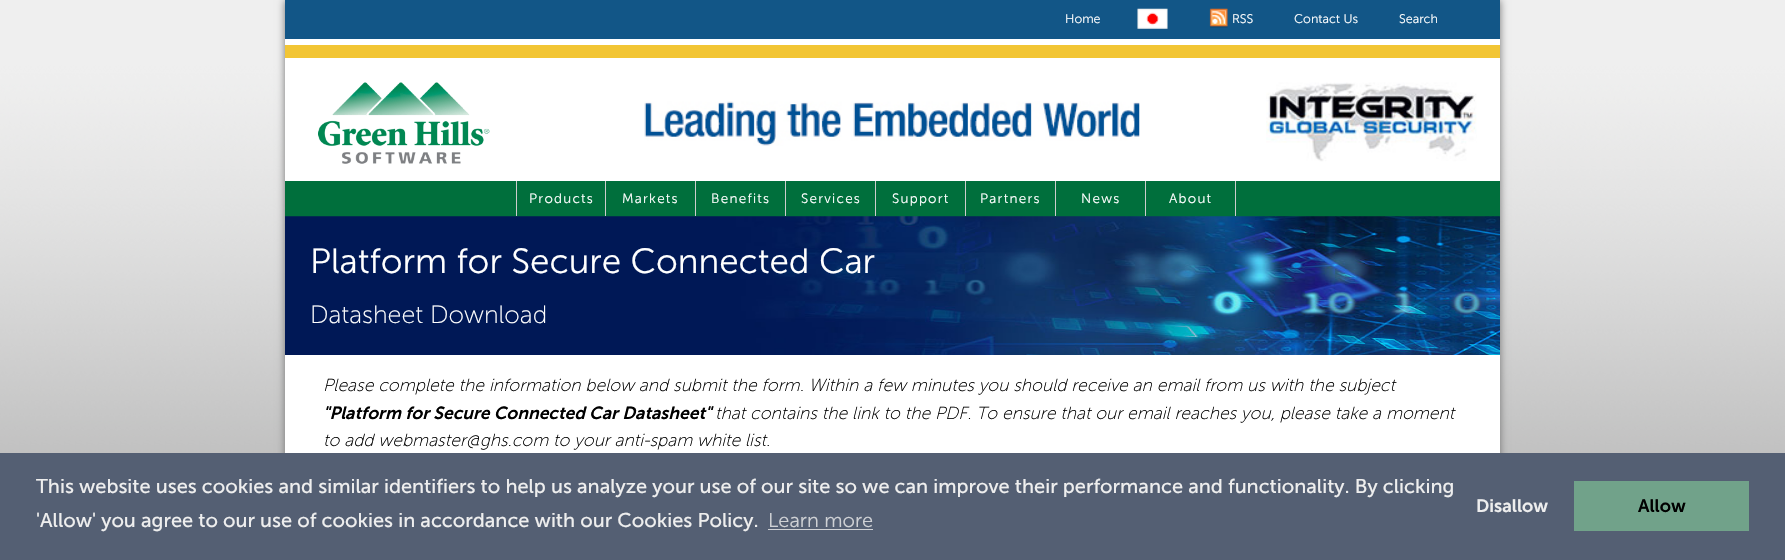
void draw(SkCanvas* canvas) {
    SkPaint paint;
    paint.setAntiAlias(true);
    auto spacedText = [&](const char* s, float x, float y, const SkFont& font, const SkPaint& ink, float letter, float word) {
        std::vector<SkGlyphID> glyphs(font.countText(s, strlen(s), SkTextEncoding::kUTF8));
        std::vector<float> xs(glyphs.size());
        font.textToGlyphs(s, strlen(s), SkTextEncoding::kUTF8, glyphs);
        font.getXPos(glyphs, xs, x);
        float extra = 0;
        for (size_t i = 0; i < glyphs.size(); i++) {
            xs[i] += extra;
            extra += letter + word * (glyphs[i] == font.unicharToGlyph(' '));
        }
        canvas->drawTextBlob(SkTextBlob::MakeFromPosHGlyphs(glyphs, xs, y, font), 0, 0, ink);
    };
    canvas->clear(0xFFFFFFFF);
    canvas->drawImageRect(SkImages::DeferredFromEncodedData(SkData::MakeFromFileName("img1.png")), SkRect::MakeXYWH(0, 0, 1785, 453), SkSamplingOptions());
    paint.setColor(0xFF737373);
    paint.setMaskFilter(SkMaskFilter::MakeBlur(kNormal_SkBlurStyle, 4));
    canvas->drawRect(SkRect::MakeXYWH(285, 0, 1215, 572), paint);
    paint.setMaskFilter(nullptr);
    paint.setColor(0xFFFFFFFF);
    canvas->drawRect(SkRect::MakeXYWH(285, 39, 1215, 414), paint);
    paint.setColor(0xFF125687);
    canvas->drawRect(SkRect::MakeXYWH(285, 0, 1215, 39), paint);
    SkFont font1(fontMgr->matchFamilyStyle("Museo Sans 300", SkFontStyle(300, SkFontStyle::kNormal_Width, SkFontStyle::kUpright_Slant)), 12.5f);
    font1.setSubpixel(true);
    paint.setColor(0xFFFFFFFF);
    canvas->drawString("Home", 1065, 23, font1, paint);
    canvas->drawImageRect(SkImages::DeferredFromEncodedData(SkData::MakeFromFileName("img2.png")), SkRect::MakeXYWH(1137, 8, 31, 21), SkSamplingOptions());
    canvas->drawImageRect(SkImages::DeferredFromEncodedData(SkData::MakeFromFileName("img3.png")), SkRect::MakeXYWH(1209, 8, 19, 20), SkSamplingOptions());
    canvas->drawString("RSS", 1232, 23, font1, paint);
    canvas->drawString("Contact Us", 1294, 23, font1, paint);
    canvas->drawString("Search", 1399, 23, font1, paint);
    paint.setColor(0xFFF2C534);
    canvas->drawRect(SkRect::MakeXYWH(285, 45, 1215, 13), paint);
    canvas->drawImageRect(SkImages::DeferredFromEncodedData(SkData::MakeFromFileName("img4.png")), SkRect::MakeXYWH(318, 82, 172, 82), SkSamplingOptions());
    canvas->drawImageRect(SkImages::DeferredFromEncodedData(SkData::MakeFromFileName("img5.png")), SkRect::MakeXYWH(644, 101, 496, 45), SkSamplingOptions());
    canvas->drawImageRect(SkImages::DeferredFromEncodedData(SkData::MakeFromFileName("img6.png")), SkRect::MakeXYWH(1266, 82, 211, 80), SkSamplingOptions());
    paint.setColor(0xFF006F3C);
    canvas->drawRect(SkRect::MakeXYWH(285, 181, 1215, 36), paint);
    paint.setColor(0xFFCCCCCC);
    canvas->drawRect(SkRect::MakeXYWH(605, 181, 1, 35), paint);
    canvas->drawRect(SkRect::MakeXYWH(516, 181, 1, 35), paint);
    SkFont font2(fontMgr->matchFamilyStyle("Museo Sans 300", SkFontStyle(300, SkFontStyle::kNormal_Width, SkFontStyle::kUpright_Slant)), 13.5f);
    font2.setSubpixel(true);
    paint.setColor(0xFFFFFFFF);
    spacedText("Products", 529, 203, font2, paint, 1.25f, 0);
    paint.setColor(0xFFCCCCCC);
    canvas->drawRect(SkRect::MakeXYWH(695, 181, 1, 35), paint);
    paint.setColor(0xFFFFFFFF);
    spacedText("Markets", 622, 203, font2, paint, 1.25f, 0);
    paint.setColor(0xFFCCCCCC);
    canvas->drawRect(SkRect::MakeXYWH(785, 181, 1, 35), paint);
    paint.setColor(0xFFFFFFFF);
    spacedText("Benefits", 711, 203, font2, paint, 1.25f, 0);
    paint.setColor(0xFFCCCCCC);
    canvas->drawRect(SkRect::MakeXYWH(875, 181, 1, 35), paint);
    paint.setColor(0xFFFFFFFF);
    spacedText("Services", 801, 203, font2, paint, 1.25f, 0);
    paint.setColor(0xFFCCCCCC);
    canvas->drawRect(SkRect::MakeXYWH(965, 181, 1, 35), paint);
    paint.setColor(0xFFFFFFFF);
    spacedText("Support", 892, 203, font2, paint, 1.25f, 0);
    paint.setColor(0xFFCCCCCC);
    canvas->drawRect(SkRect::MakeXYWH(1055, 181, 1, 35), paint);
    paint.setColor(0xFFFFFFFF);
    spacedText("Partners", 980, 203, font2, paint, 1.25f, 0);
    paint.setColor(0xFFCCCCCC);
    canvas->drawRect(SkRect::MakeXYWH(1145, 181, 1, 35), paint);
    paint.setColor(0xFFFFFFFF);
    spacedText("News", 1081, 203, font2, paint, 1.25f, 0);
    paint.setColor(0xFFCCCCCC);
    canvas->drawRect(SkRect::MakeXYWH(1235, 181, 1, 35), paint);
    paint.setColor(0xFFFFFFFF);
    spacedText("About", 1169, 203, font2, paint, 1.25f, 0);
    canvas->drawImageRect(SkImages::DeferredFromEncodedData(SkData::MakeFromFileName("img7.png")), SkRect::MakeXYWH(285, 216, 1215, 139), SkSamplingOptions());
    SkFont font3(fontMgr->matchFamilyStyle("Museo Sans 300", SkFontStyle(300, SkFontStyle::kNormal_Width, SkFontStyle::kUpright_Slant)), 35);
    font3.setSubpixel(true);
    canvas->drawString("Platform for Secure Connected Car", 310, 273, font3, paint);
    SkFont font4(fontMgr->matchFamilyStyle("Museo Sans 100", SkFontStyle(300, SkFontStyle::kNormal_Width, SkFontStyle::kUpright_Slant)), 25);
    font4.setSubpixel(true);
    canvas->drawString("Datasheet Download", 310, 323, font4, paint);
    SkFont font5(fontMgr->matchFamilyStyle("Museo Sans 100", SkFontStyle(300, SkFontStyle::kNormal_Width, SkFontStyle::kItalic_Slant)), 17.5f);
    font5.setSubpixel(true);
    paint.setColor(0xFF000000);
    canvas->drawString("Please complete the information below and submit the form. Within a few minutes you should receive an email from us with the subject", 323, 391, font5, paint);
    SkFont font6(fontMgr->matchFamilyStyle("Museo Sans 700", SkFontStyle(600, SkFontStyle::kNormal_Width, SkFontStyle::kItalic_Slant)), 17.5f);
    font6.setSubpixel(true);
    canvas->drawString("\"Platform for Secure Connected Car Datasheet\"", 323, 419, font6, paint);
    canvas->drawString("that contains the link to the PDF. To ensure that our email reaches you, please take a moment", 715, 419, font5, paint);
    canvas->drawString("to add webmaster@ghs.com to your anti-spam white list.", 323, 446, font5, paint);
    paint.setColor(0xFF545F73);
    canvas->drawRect(SkRect::MakeXYWH(0, 453, 1785, 107), paint);
    SkFont font7(fontMgr->matchFamilyStyle("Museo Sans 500", SkFontStyle::Normal()), 20);
    font7.setSubpixel(true);
    paint.setColor(0xFFEEEEEE);
    canvas->drawString("This website uses cookies and similar identifiers to help us analyze your use of our site so we can improve their performance and functionality. By clicking", 36, 493, font7, paint);
    canvas->drawString("'Allow' you agree to our use of cookies in accordance with our Cookies Policy.", 36, 527, font7, paint);
    SkFont font8(fontMgr->matchFamilyStyle("Museo Sans 300", SkFontStyle(300, SkFontStyle::kNormal_Width, SkFontStyle::kUpright_Slant)), 20);
    font8.setSubpixel(true);
    paint.setColor(0xFFCFD1D5);
    canvas->drawString("Learn more", 768, 527, font8, paint);
    canvas->drawRect(SkRect::MakeXYWH(768, 529, 105, 1), paint);
    SkFont font9(fontMgr->matchFamilyStyle("Museo Sans 700", SkFontStyle(600, SkFontStyle::kNormal_Width, SkFontStyle::kUpright_Slant)), 18);
    font9.setSubpixel(true);
    paint.setColor(0xFFEEEEEE);
    canvas->drawString("Disallow", 1476, 512, font9, paint);
    paint.setColor(0xFF71A28A);
    canvas->drawRect(SkRect::MakeXYWH(1574, 481, 175, 50), paint);
    paint.setColor(0xFF000000);
    canvas->drawString("Allow", 1638, 512, font9, paint);
}
